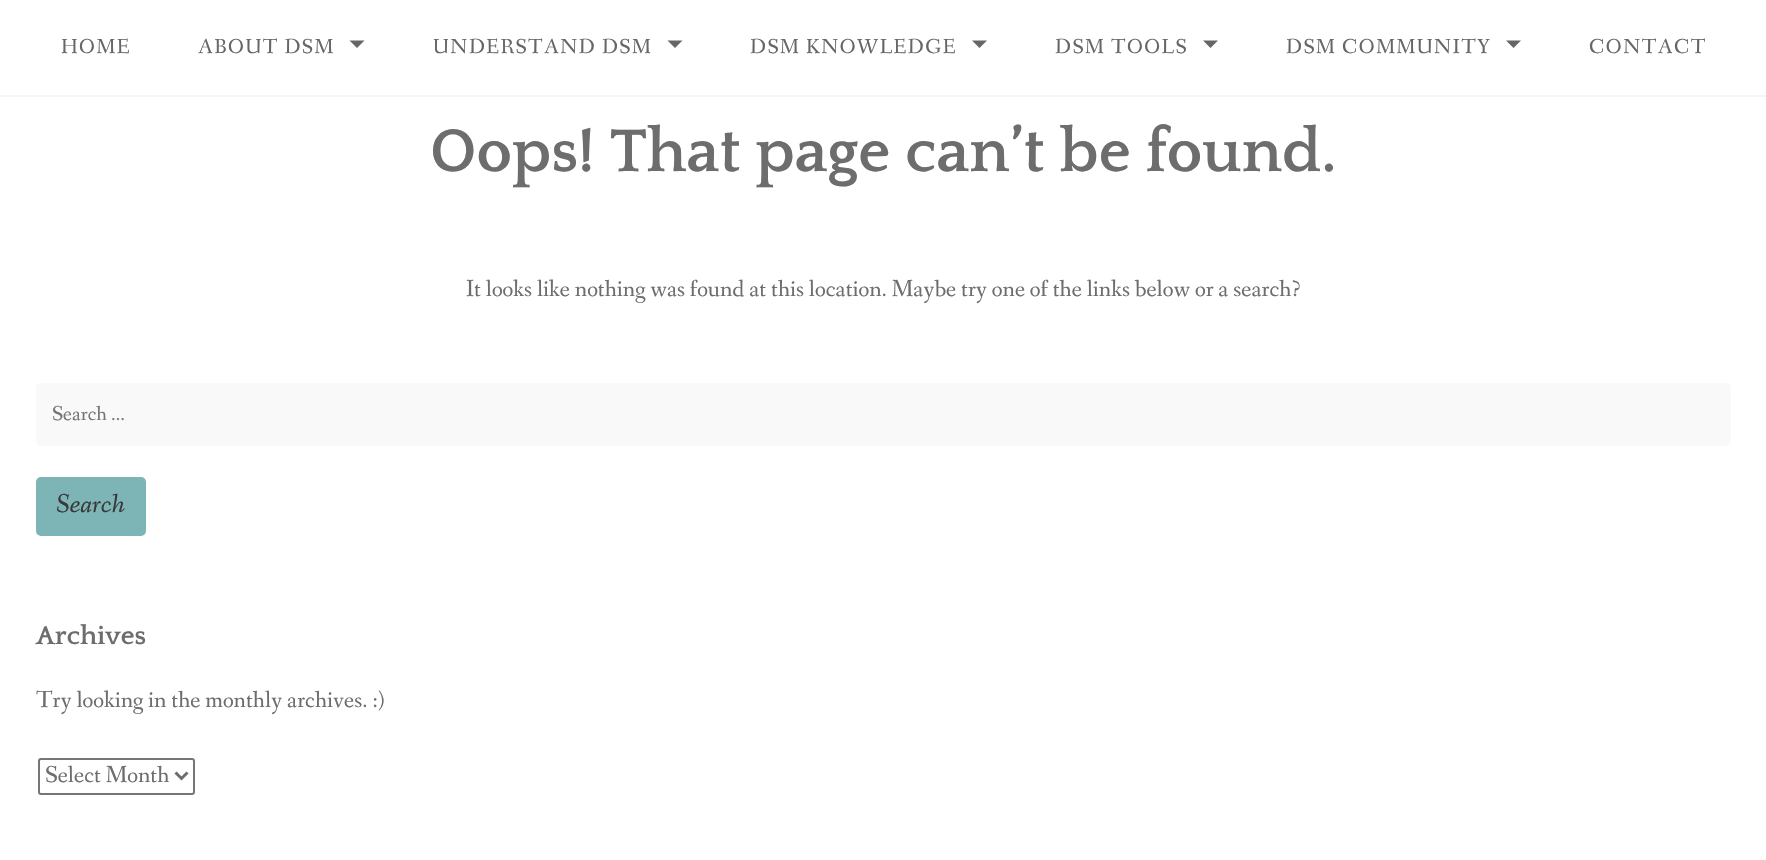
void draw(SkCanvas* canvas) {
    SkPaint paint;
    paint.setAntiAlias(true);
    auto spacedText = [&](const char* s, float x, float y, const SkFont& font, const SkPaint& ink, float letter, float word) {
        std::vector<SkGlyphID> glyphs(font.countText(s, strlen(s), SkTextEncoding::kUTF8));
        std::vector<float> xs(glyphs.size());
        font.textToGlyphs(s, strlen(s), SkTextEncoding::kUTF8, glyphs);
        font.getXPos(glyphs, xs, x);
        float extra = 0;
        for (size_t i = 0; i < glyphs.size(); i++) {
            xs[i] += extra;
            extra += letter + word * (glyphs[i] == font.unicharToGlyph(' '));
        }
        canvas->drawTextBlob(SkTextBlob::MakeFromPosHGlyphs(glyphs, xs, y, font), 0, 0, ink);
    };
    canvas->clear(0xFFFFFFFF);
    paint.setColor(0xFFF5F5F5);
    canvas->drawRect(SkRect::MakeXYWH(0, 95, 1766, 2), paint);
    SkFont font1(fontMgr->matchFamilyStyle("Fanwood Text", SkFontStyle::Normal()), 21);
    font1.setSubpixel(true);
    paint.setColor(0xFF666666);
    spacedText("HOME", 61, 53, font1, paint, 1.5f, 0);
    spacedText("ABOUT DSM", 198, 53, font1, paint, 1.5f, 0);
    canvas->drawPath(SkPathBuilder().moveTo(349.5f, 40.5f).lineTo(364.5f, 40.5f).lineTo(357, 48).close().detach(), paint);
    spacedText("UNDERSTAND DSM", 433, 53, font1, paint, 1.5f, 0);
    canvas->drawPath(SkPathBuilder().moveTo(667.5f, 40.5f).lineTo(682.5f, 40.5f).lineTo(675, 48).close().detach(), paint);
    spacedText("DSM KNOWLEDGE", 750, 53, font1, paint, 1.5f, 0);
    canvas->drawPath(SkPathBuilder().moveTo(972, 40.5f).lineTo(987, 40.5f).lineTo(979.5f, 48).close().detach(), paint);
    spacedText("DSM TOOLS", 1055, 53, font1, paint, 1.5f, 0);
    canvas->drawPath(SkPathBuilder().moveTo(1203, 40.5f).lineTo(1218, 40.5f).lineTo(1210.5f, 48).close().detach(), paint);
    spacedText("DSM COMMUNITY", 1286, 53, font1, paint, 1.5f, 0);
    canvas->drawPath(SkPathBuilder().moveTo(1506, 40.5f).lineTo(1521, 40.5f).lineTo(1513.5f, 48).close().detach(), paint);
    spacedText("CONTACT", 1589, 53, font1, paint, 1.5f, 0);
    SkFont font2(fontMgr->matchFamilyStyle("Quattrocento", SkFontStyle::Bold()), 63);
    font2.setSubpixel(true);
    paint.setColor(0xFF6D6D6D);
    canvas->drawString("Oops! That page can’t be found.", 430, 171, font2, paint);
    SkFont font3(fontMgr->matchFamilyStyle("Fanwood Text", SkFontStyle::Normal()), 24);
    font3.setSubpixel(true);
    canvas->drawString("It looks like nothing was found at this location. Maybe try one of the links below or a search?", 466, 296, font3, paint);
    paint.setColor(0xFFF9F9F9);
    canvas->drawRoundRect(SkRect::MakeXYWH(36, 383, 1695, 63), 5, 5, paint);
    paint.setColor(0xFF757575);
    canvas->drawString("Search …", 52, 420, font1, paint);
    paint.setColor(0xFF7DB4B5);
    canvas->drawRoundRect(SkRect::MakeXYWH(36, 477, 110, 59), 5, 5, paint);
    SkFont font4(fontMgr->matchFamilyStyle("Fanwood Text", SkFontStyle::Italic()), 27);
    font4.setSubpixel(true);
    paint.setColor(0xFF383838);
    canvas->drawString("Search", 56, 512, font4, paint);
    SkFont font5(fontMgr->matchFamilyStyle("Quattrocento", SkFontStyle::Bold()), 27);
    font5.setSubpixel(true);
    paint.setColor(0xFF6D6D6D);
    canvas->drawString("Archives", 36, 644, font5, paint);
    canvas->drawString("Try looking in the monthly archives. :)", 36, 707, font3, paint);
    paint.setStyle(SkPaint::kStroke_Style);
    paint.setStrokeWidth(2);
    paint.setColor(0xFF767676);
    canvas->drawRoundRect(SkRect::MakeXYWH(39, 759, 155, 35), 2, 2, paint);
    paint.setStrokeWidth(3);
    paint.setColor(0xFF6D6D6D);
    canvas->drawPath(SkPathBuilder().moveTo(175.5f, 772.5f).lineTo(181.5f, 778.5f).lineTo(187.5f, 772.5f).detach(), paint);
    paint.setStyle(SkPaint::kFill_Style);
    canvas->drawString("Select Month", 45, 782, font3, paint);
}
